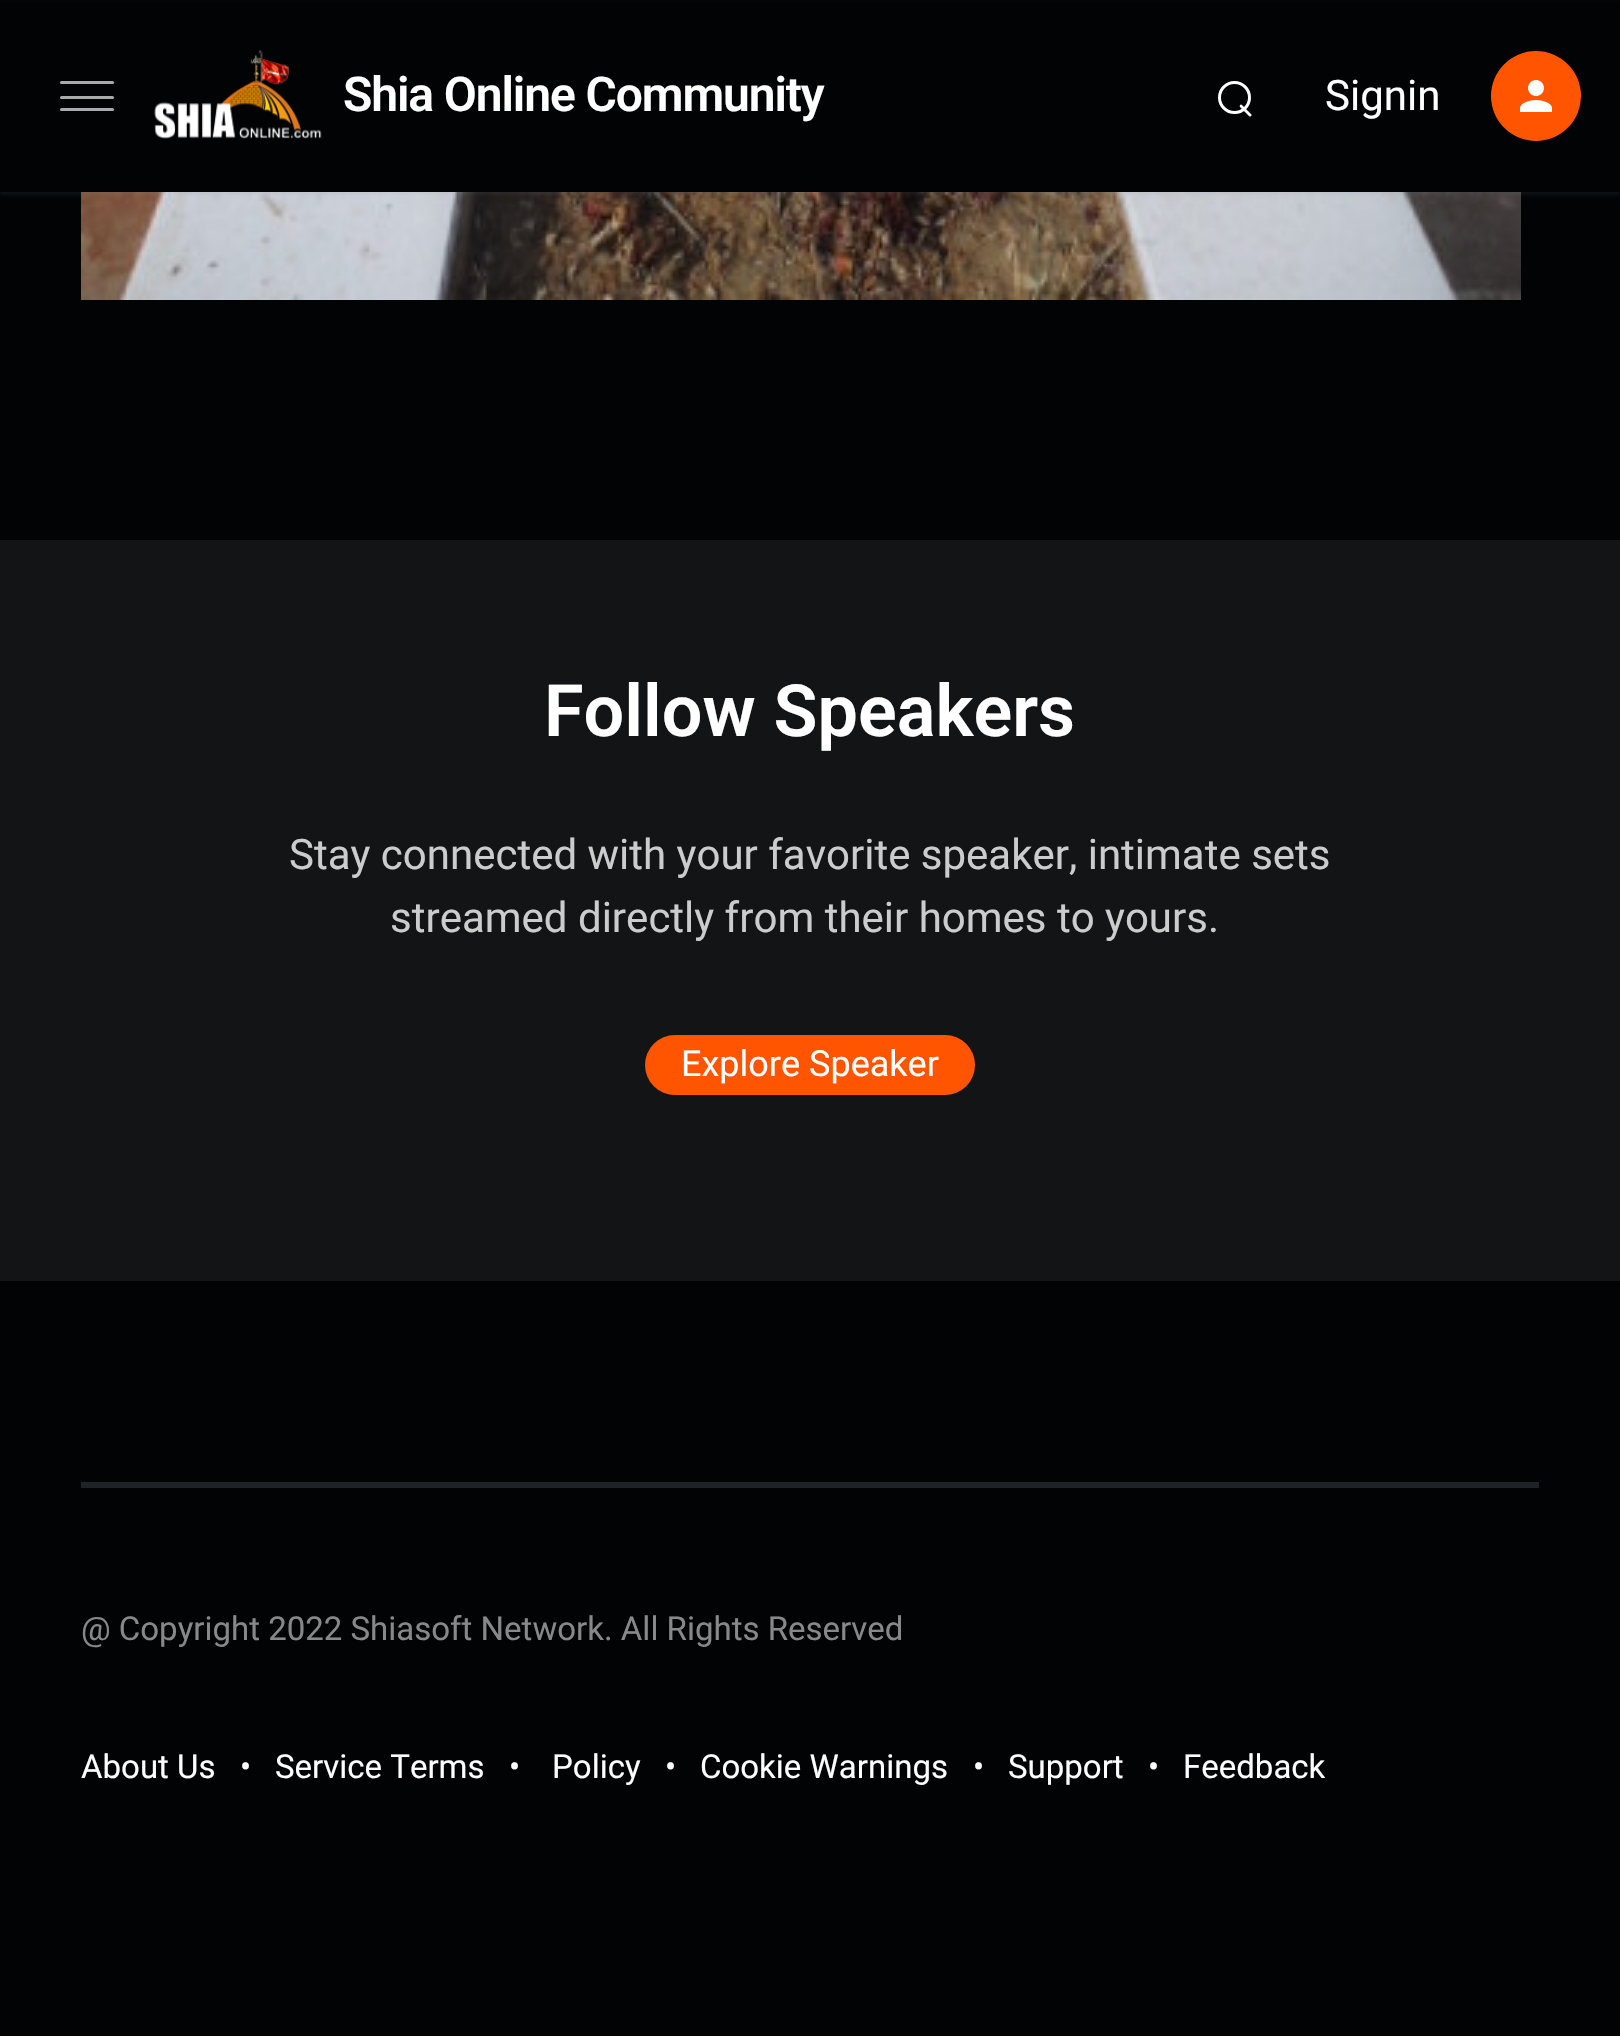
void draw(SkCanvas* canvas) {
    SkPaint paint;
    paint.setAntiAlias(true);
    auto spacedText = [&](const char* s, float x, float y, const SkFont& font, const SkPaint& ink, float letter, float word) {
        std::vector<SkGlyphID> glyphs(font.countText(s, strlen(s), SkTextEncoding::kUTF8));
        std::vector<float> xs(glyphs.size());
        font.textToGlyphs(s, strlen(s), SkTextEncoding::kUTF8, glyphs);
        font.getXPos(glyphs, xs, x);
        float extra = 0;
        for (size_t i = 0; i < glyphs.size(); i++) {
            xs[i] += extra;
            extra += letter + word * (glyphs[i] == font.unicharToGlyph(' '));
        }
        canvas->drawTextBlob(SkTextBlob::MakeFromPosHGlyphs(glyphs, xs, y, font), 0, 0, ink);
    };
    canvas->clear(0xFF010305);
    canvas->drawImageRect(SkImages::DeferredFromEncodedData(SkData::MakeFromFileName("img3.png")), SkRect::MakeXYWH(81, 192, 1440, 108), SkSamplingOptions());
    paint.setColor(0x1A828C96);
    paint.setMaskFilter(SkMaskFilter::MakeBlur(kNormal_SkBlurStyle, 1.5f));
    canvas->drawRect(SkRect::MakeXYWH(0, 3, 1620, 192), paint);
    paint.setMaskFilter(nullptr);
    paint.setColor(0xFF010305);
    canvas->drawRect(SkRect::MakeXYWH(0, 2, 1620, 190), paint);
    paint.setColor(0xFFAAAAAA);
    canvas->drawRoundRect(SkRect::MakeXYWH(60, 96, 54, 3), 1.5f, 1.5f, paint);
    canvas->drawRoundRect(SkRect::MakeXYWH(60, 81, 54, 3), 1.5f, 1.5f, paint);
    canvas->drawRoundRect(SkRect::MakeXYWH(60, 108, 54, 3), 1.5f, 1.5f, paint);
    canvas->drawImageRect(SkImages::DeferredFromEncodedData(SkData::MakeFromFileName("img1.png")), SkRect::MakeXYWH(154, 50, 168, 89), SkSamplingOptions());
    SkFont font1(fontMgr->matchFamilyStyle("Roboto", SkFontStyle(600, SkFontStyle::kNormal_Width, SkFontStyle::kUpright_Slant)), 48);
    font1.setSubpixel(true);
    paint.setColor(0xFFFFFFFF);
    spacedText("Shia Online Community", 343, 111, font1, paint, -1.1f, 0);
    paint.setStyle(SkPaint::kStroke_Style);
    paint.setStrokeWidth(3);
    canvas->drawCircle(1234.5f, 97.5f, 15, paint);
    paint.setStyle(SkPaint::kFill_Style);
    canvas->drawPath(SkPathBuilder().moveTo(1242, 105).lineTo(1251.5f, 114.5f).cubicTo(1252, 115.5f, 1250.5f, 117, 1249.5f, 116.5f).lineTo(1240, 107).cubicTo(1239, 105.5f, 1241, 103.5f, 1242, 105).close().detach(), paint);
    SkFont font2(fontMgr->matchFamilyStyle("Roboto", SkFontStyle::Normal()), 42);
    font2.setSubpixel(true);
    canvas->drawString("Signin", 1325, 110, font2, paint);
    paint.setColor(0xFFFF5500);
    canvas->drawCircle(1536, 96, 45, paint);
    canvas->drawImageRect(SkImages::DeferredFromEncodedData(SkData::MakeFromFileName("img2.png")), SkRect::MakeXYWH(1520, 80, 32, 32), SkSamplingOptions());
    paint.setColor(0xFF121416);
    canvas->drawRect(SkRect::MakeXYWH(0, 540, 1620, 741), paint);
    SkFont font3(fontMgr->matchFamilyStyle("Roboto", SkFontStyle(600, SkFontStyle::kNormal_Width, SkFontStyle::kUpright_Slant)), 72);
    font3.setSubpixel(true);
    paint.setColor(0xFFFFFFFF);
    canvas->drawString("Follow Speakers", 544, 736, font3, paint);
    paint.setColor(0xFFCCCCCC);
    canvas->drawString("Stay connected with your favorite speaker, intimate sets", 289, 869, font2, paint);
    canvas->drawString("streamed directly from their homes to yours.", 390, 932, font2, paint);
    paint.setColor(0xFFFF5500);
    canvas->drawRoundRect(SkRect::MakeXYWH(645, 1035, 330, 60), 30, 30, paint);
    SkFont font4(fontMgr->matchFamilyStyle("Roboto", SkFontStyle::Normal()), 36);
    font4.setSubpixel(true);
    paint.setColor(0xFFFFFFFF);
    canvas->drawString("Explore Speaker", 681, 1076, font4, paint);
    paint.setColor(0xFF1F2226);
    canvas->drawRect(SkRect::MakeXYWH(81, 1482, 1458, 6), paint);
    SkFont font5(fontMgr->matchFamilyStyle("Roboto", SkFontStyle::Normal()), 33);
    font5.setSubpixel(true);
    paint.setColor(0xFF888888);
    canvas->drawString("@ Copyright 2022 Shiasoft Network. All Rights Reserved", 81, 1640, font5, paint);
    paint.setColor(0xFFFFFFFF);
    canvas->drawString("About Us", 81, 1778, font5, paint);
    canvas->drawString("•", 240, 1778, font5, paint);
    canvas->drawString("Service Terms", 275, 1778, font5, paint);
    canvas->drawString("•", 509, 1778, font5, paint);
    canvas->drawString("Policy", 552, 1778, font5, paint);
    canvas->drawString("•", 665, 1778, font5, paint);
    canvas->drawString("Cookie Warnings", 700, 1778, font5, paint);
    canvas->drawString("•", 973, 1778, font5, paint);
    canvas->drawString("Support", 1008, 1778, font5, paint);
    canvas->drawString("•", 1148, 1778, font5, paint);
    canvas->drawString("Feedback", 1183, 1778, font5, paint);
}
